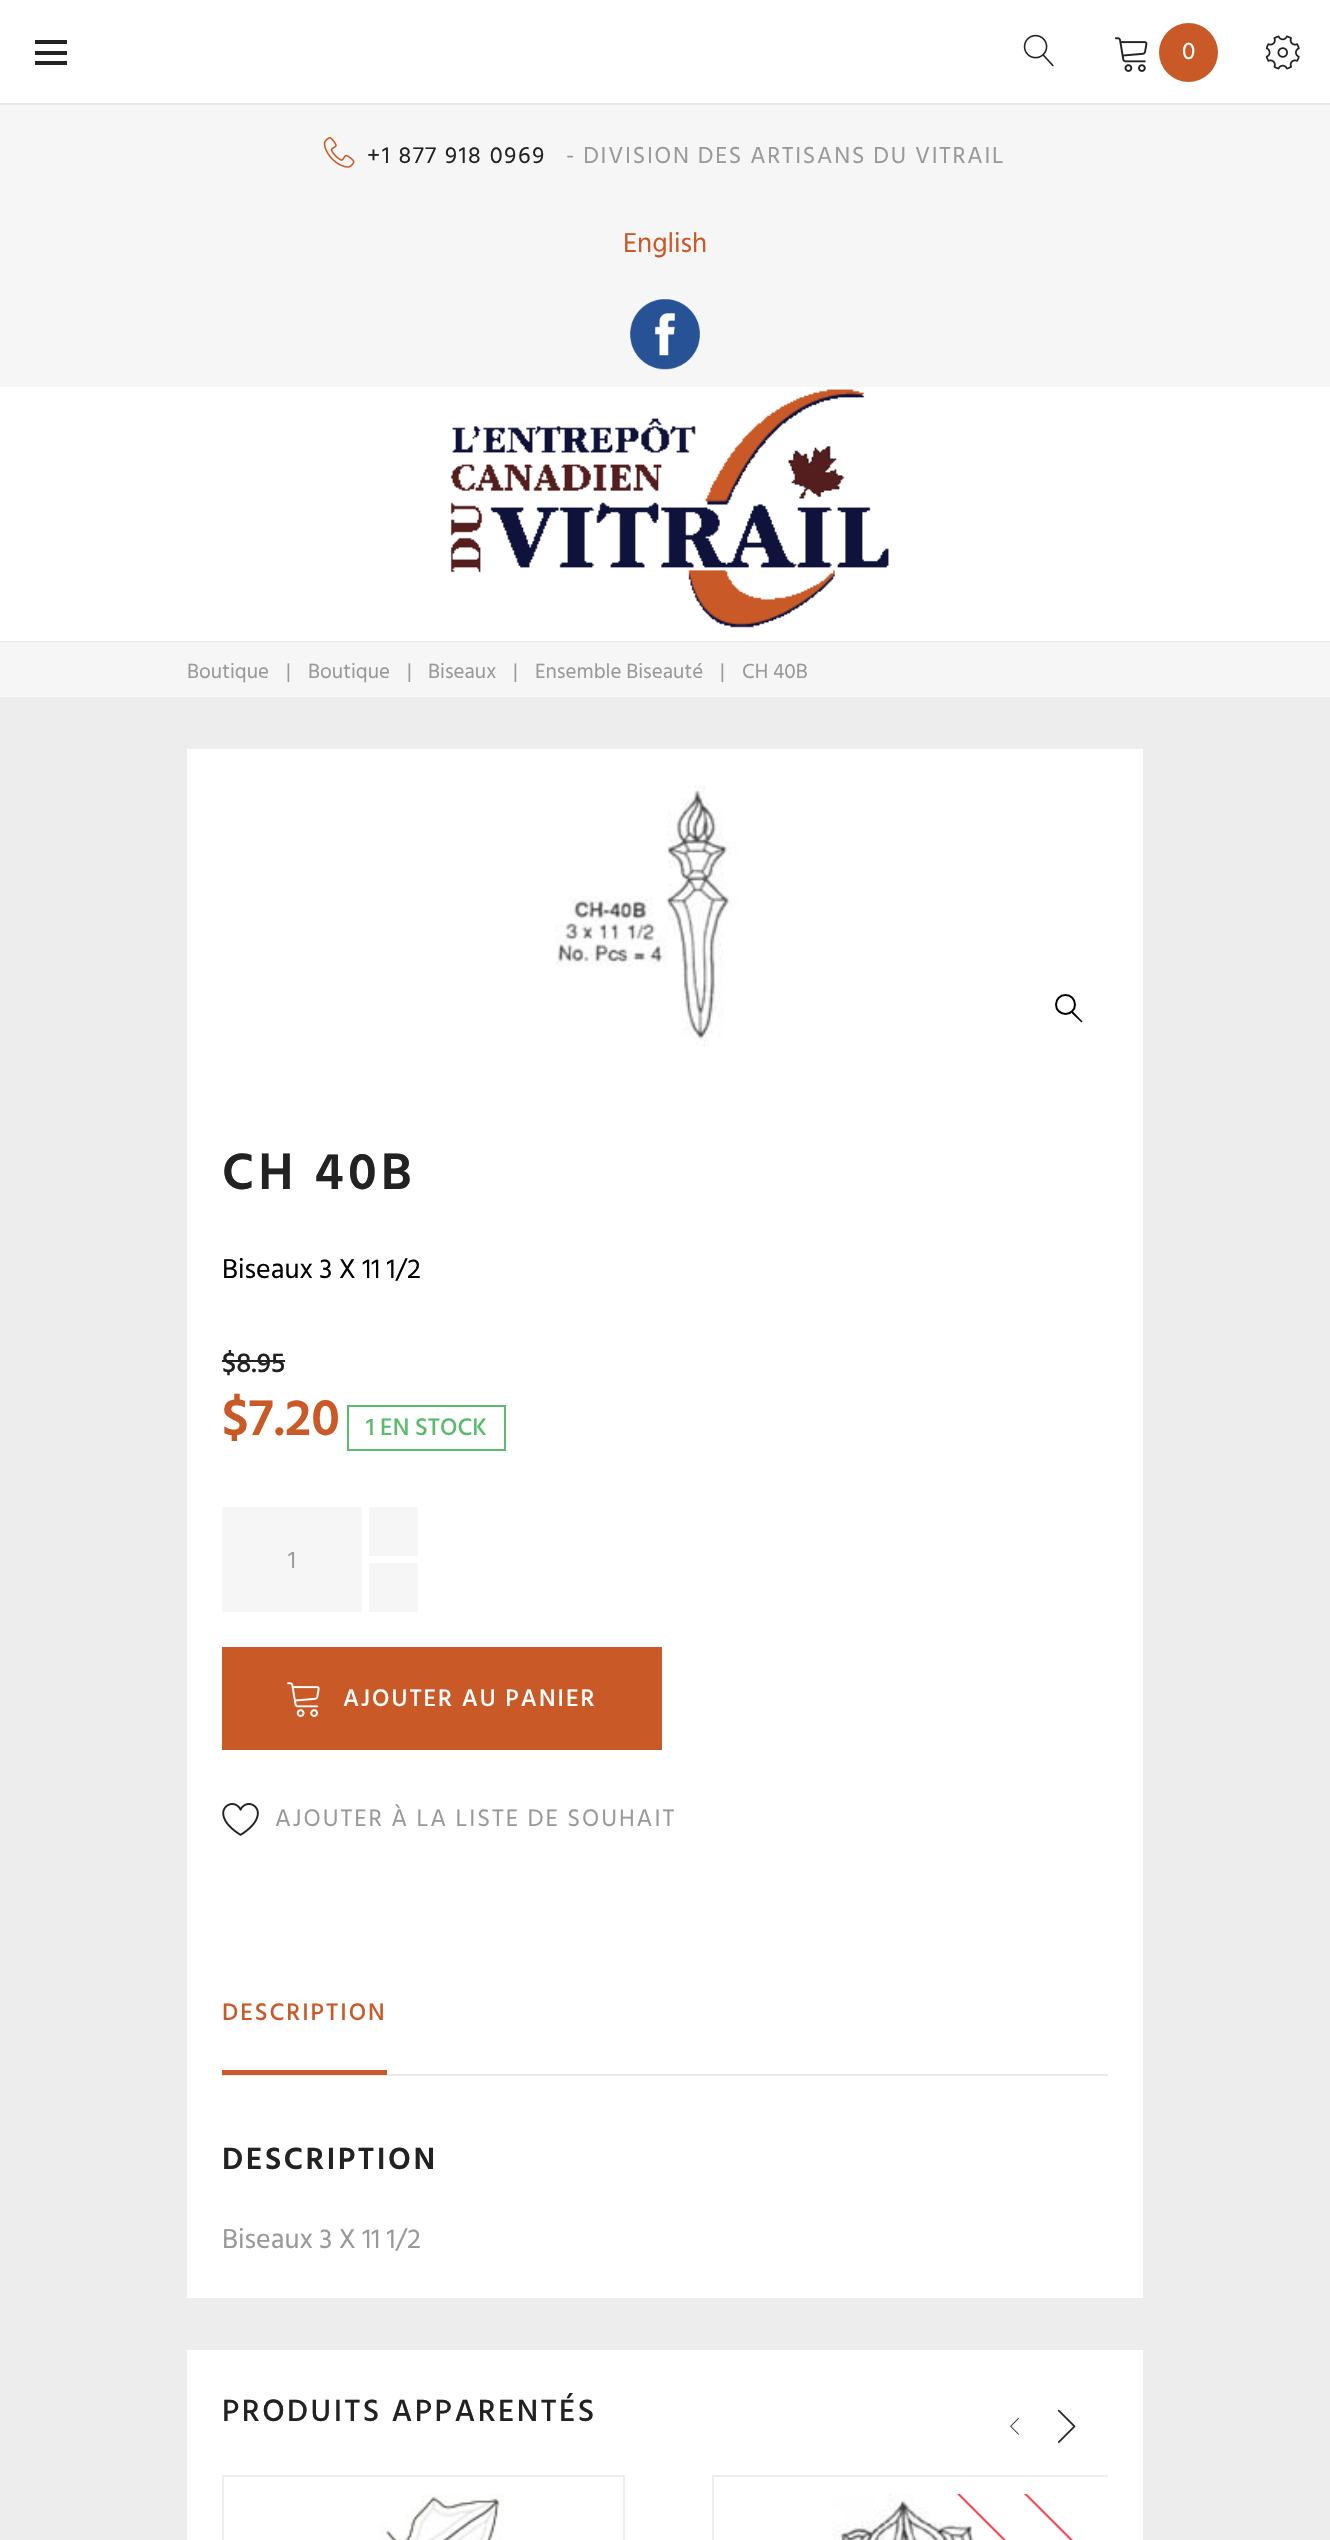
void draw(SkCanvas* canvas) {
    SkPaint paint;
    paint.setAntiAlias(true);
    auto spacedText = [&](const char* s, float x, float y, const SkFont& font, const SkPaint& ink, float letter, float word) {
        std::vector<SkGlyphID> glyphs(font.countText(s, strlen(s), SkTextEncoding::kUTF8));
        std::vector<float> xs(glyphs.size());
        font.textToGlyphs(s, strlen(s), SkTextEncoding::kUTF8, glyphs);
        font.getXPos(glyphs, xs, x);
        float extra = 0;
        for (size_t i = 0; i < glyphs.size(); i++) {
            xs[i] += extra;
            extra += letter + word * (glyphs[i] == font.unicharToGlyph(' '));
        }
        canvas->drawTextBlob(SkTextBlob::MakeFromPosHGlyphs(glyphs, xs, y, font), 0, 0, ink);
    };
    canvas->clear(0xFFEDEDED);
    paint.setColor(0xFFFFFFFF);
    canvas->drawRect(SkRect::MakeXYWH(0, 0, 1330, 103), paint);
    paint.setColor(0xFFE8E8E8);
    canvas->drawRect(SkRect::MakeXYWH(0, 103, 1330, 2), paint);
    paint.setColor(0xFF222222);
    canvas->drawRect(SkRect::MakeXYWH(35, 51, 32, 4), paint);
    canvas->drawRect(SkRect::MakeXYWH(35, 40, 32, 4), paint);
    canvas->drawRect(SkRect::MakeXYWH(35, 61, 32, 4), paint);
    canvas->drawImageRect(SkImages::DeferredFromEncodedData(SkData::MakeFromFileName("img1.png")), SkRect::MakeXYWH(1023, 34, 31, 33), SkSamplingOptions());
    canvas->drawImageRect(SkImages::DeferredFromEncodedData(SkData::MakeFromFileName("img2.png")), SkRect::MakeXYWH(1114, 37, 34, 35), SkSamplingOptions());
    paint.setColor(0xFFC95A28);
    canvas->drawCircle(1188.5f, 52.5f, 29.5f, paint);
    SkFont font1(fontMgr->matchFamilyStyle("Hind Siliguri", SkFontStyle::Normal()), 24.5f);
    font1.setSubpixel(true);
    paint.setColor(0xFFFFFFFF);
    canvas->drawString("0", 1182, 59, font1, paint);
    canvas->drawImageRect(SkImages::DeferredFromEncodedData(SkData::MakeFromFileName("img3.png")), SkRect::MakeXYWH(1265, 35, 35, 35), SkSamplingOptions());
    paint.setColor(0xFFF6F6F6);
    canvas->drawRect(SkRect::MakeXYWH(0, 105, 1330, 282), paint);
    canvas->drawImageRect(SkImages::DeferredFromEncodedData(SkData::MakeFromFileName("img4.png")), SkRect::MakeXYWH(323, 137, 32, 31), SkSamplingOptions());
    SkFont font2(fontMgr->matchFamilyStyle("Hind Siliguri", SkFontStyle::Normal()), 23.75f);
    font2.setSubpixel(true);
    paint.setColor(0xFF222222);
    spacedText("+1 877 918 0969", 367, 163, font2, paint, 1.75f, 0);
    paint.setColor(0xFF999999);
    spacedText("- DIVISION DES ARTISANS DU VITRAIL", 566, 163, font2, paint, 1.75f, 0);
    SkFont font3(fontMgr->matchFamilyStyle("Hind Siliguri", SkFontStyle::Normal()), 28);
    font3.setSubpixel(true);
    paint.setColor(0xFFC95A28);
    canvas->drawString("English", 623, 252, font3, paint);
    canvas->drawImageRect(SkImages::DeferredFromEncodedData(SkData::MakeFromFileName("img5.png")), SkRect::MakeXYWH(630, 299, 70, 71), SkSamplingOptions());
    paint.setColor(0xFFFFFFFF);
    canvas->drawRect(SkRect::MakeXYWH(0, 387, 1330, 254), paint);
    canvas->drawImageRect(SkImages::DeferredFromEncodedData(SkData::MakeFromFileName("img6.png")), SkRect::MakeXYWH(450, 389, 439, 239), SkSamplingOptions());
    paint.setColor(0xFFE8E8E8);
    canvas->drawRect(SkRect::MakeXYWH(0, 641, 1330, 1), paint);
    paint.setColor(0xFFF6F6F6);
    canvas->drawRect(SkRect::MakeXYWH(0, 642, 1330, 55), paint);
    SkFont font4(fontMgr->matchFamilyStyle("Hind Siliguri", SkFontStyle::Normal()), 21);
    font4.setSubpixel(true);
    paint.setColor(0xFF999999);
    canvas->drawString("Boutique", 187, 678, font4, paint);
    canvas->drawString("|", 286, 678, font4, paint);
    canvas->drawString("Boutique", 308, 678, font4, paint);
    canvas->drawString("|", 407, 678, font4, paint);
    canvas->drawString("Biseaux", 428, 678, font4, paint);
    canvas->drawString("|", 513, 678, font4, paint);
    canvas->drawString("Ensemble Biseauté", 535, 678, font4, paint);
    canvas->drawString("|", 720, 678, font4, paint);
    canvas->drawString("CH 40B", 742, 678, font4, paint);
    paint.setColor(0xFFFFFFFF);
    canvas->drawRect(SkRect::MakeXYWH(187, 749, 956, 1549), paint);
    canvas->drawImageRect(SkImages::DeferredFromEncodedData(SkData::MakeFromFileName("img7.png")), SkRect::MakeXYWH(555, 785, 182, 262), SkSamplingOptions());
    paint.setStyle(SkPaint::kStroke_Style);
    paint.setStrokeWidth(2);
    paint.setColor(0xFF000000);
    canvas->drawCircle(1065.5f, 1004.5f, 9.5f, paint);
    paint.setStyle(SkPaint::kFill_Style);
    canvas->drawPath(SkPathBuilder().moveTo(1072, 1012).cubicTo(1072.5f, 1012, 1073, 1012, 1073.5f, 1012).lineTo(1082, 1021).cubicTo(1082.5f, 1021, 1082.5f, 1021.5f, 1082, 1022).cubicTo(1081.5f, 1022.5f, 1081, 1022.5f, 1081, 1022).lineTo(1072, 1013.5f).cubicTo(1072, 1013, 1072, 1012.5f, 1072, 1012).close().detach(), paint);
    SkFont font5(fontMgr->matchFamilyStyle("Hind Siliguri", SkFontStyle(600, SkFontStyle::kNormal_Width, SkFontStyle::kUpright_Slant)), 52.5f);
    font5.setSubpixel(true);
    paint.setColor(0xFF222222);
    spacedText("CH 40B", 222, 1189, font5, paint, 4.25f, 0);
    paint.setColor(0xFF000000);
    canvas->drawString("Biseaux 3 X 11 1/2", 222, 1278, font3, paint);
    SkFont font6(fontMgr->matchFamilyStyle("Hind Siliguri", SkFontStyle(500, SkFontStyle::kNormal_Width, SkFontStyle::kUpright_Slant)), 28);
    font6.setSubpixel(true);
    paint.setColor(0xFF222222);
    canvas->drawString("$8.95", 222, 1372, font6, paint);
    canvas->drawRect(SkRect::MakeXYWH(222, 1360, 63, 2), paint);
    paint.setColor(0xFFC95A28);
    canvas->drawString("$7.20", 222, 1435, font5, paint);
    paint.setStyle(SkPaint::kStroke_Style);
    paint.setColor(0xFF59BC6C);
    canvas->drawRect(SkRect::MakeXYWH(348, 1406, 157, 44), paint);
    SkFont font7(fontMgr->matchFamilyStyle("Hind Siliguri", SkFontStyle(500, SkFontStyle::kNormal_Width, SkFontStyle::kUpright_Slant)), 24.5f);
    font7.setSubpixel(true);
    paint.setStyle(SkPaint::kFill_Style);
    canvas->drawString("1 EN STOCK", 366, 1435, font7, paint);
    paint.setColor(0xFFF6F6F6);
    canvas->drawRect(SkRect::MakeXYWH(369, 1507, 49, 49), paint);
    canvas->drawRect(SkRect::MakeXYWH(222, 1507, 140, 105), paint);
    paint.setColor(0xFF999999);
    canvas->drawString("1", 288, 1568, font1, paint);
    paint.setColor(0xFFF6F6F6);
    canvas->drawRect(SkRect::MakeXYWH(369, 1563, 49, 49), paint);
    paint.setColor(0xFFC95A28);
    canvas->drawRect(SkRect::MakeXYWH(222, 1647, 440, 103), paint);
    canvas->drawImageRect(SkImages::DeferredFromEncodedData(SkData::MakeFromFileName("img8.png")), SkRect::MakeXYWH(287, 1682, 33, 35), SkSamplingOptions());
    paint.setColor(0xFFFFFFFF);
    spacedText("AJOUTER AU PANIER", 343, 1706, font7, paint, 1.95f, 0);
    canvas->drawImageRect(SkImages::DeferredFromEncodedData(SkData::MakeFromFileName("img9.png")), SkRect::MakeXYWH(222, 1803, 37, 33), SkSamplingOptions());
    paint.setColor(0xFF999999);
    spacedText("AJOUTER À LA LISTE DE SOUHAIT", 275, 1826, font1, paint, 1.95f, 0);
    paint.setColor(0xFFE8E8F8);
    canvas->drawRect(SkRect::MakeXYWH(222, 2074, 886, 2), paint);
    paint.setColor(0xFFC95A28);
    canvas->drawRect(SkRect::MakeXYWH(222, 2070, 165, 5), paint);
    spacedText("DESCRIPTION", 222, 2020, font7, paint, 1.95f, 0);
    SkFont font8(fontMgr->matchFamilyStyle("Hind Siliguri", SkFontStyle(600, SkFontStyle::kNormal_Width, SkFontStyle::kUpright_Slant)), 31.5f);
    font8.setSubpixel(true);
    paint.setColor(0xFF222222);
    spacedText("DESCRIPTION", 222, 2169, font8, paint, 2.5f, 0);
    paint.setColor(0xFF999999);
    canvas->drawString("Biseaux 3 X 11 1/2", 222, 2248, font3, paint);
    paint.setColor(0xFFFFFFFF);
    canvas->drawRect(SkRect::MakeXYWH(187, 2350, 956, 190), paint);
    SkFont font9(fontMgr->matchFamilyStyle("Hind Siliguri", SkFontStyle(500, SkFontStyle::kNormal_Width, SkFontStyle::kUpright_Slant)), 31.5f);
    font9.setSubpixel(true);
    paint.setColor(0xFF222222);
    spacedText("PRODUITS APPARENTÉS", 222, 2421, font9, paint, 2.5f, 0);
    canvas->drawImageRect(SkImages::DeferredFromEncodedData(SkData::MakeFromFileName("img10.png")), SkRect::MakeXYWH(1010, 2418, 9, 17), SkSamplingOptions());
    canvas->drawImageRect(SkImages::DeferredFromEncodedData(SkData::MakeFromFileName("img11.png")), SkRect::MakeXYWH(1057, 2409, 19, 34), SkSamplingOptions());
    paint.setStyle(SkPaint::kStroke_Style);
    paint.setColor(0xFFEEEEEE);
    canvas->drawRect(SkRect::MakeXYWH(223, 2476, 401, 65), paint);
    canvas->drawImageRect(SkImages::DeferredFromEncodedData(SkData::MakeFromFileName("img12.png")), SkRect::MakeXYWH(379, 2494, 125, 46), SkSamplingOptions());
    canvas->save();
    canvas->clipRect(SkRect::MakeXYWH(222, 2475, 886, 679));
    canvas->drawRect(SkRect::MakeXYWH(713, 2476, 401, 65), paint);
    canvas->restore();
    canvas->drawImageRect(SkImages::DeferredFromEncodedData(SkData::MakeFromFileName("img13.png")), SkRect::MakeXYWH(832, 2494, 142, 46), SkSamplingOptions());
    canvas->save();
    canvas->clipRect(SkRect::MakeXYWH(714, 2494, 394, 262));
    paint.setStyle(SkPaint::kFill_Style);
    paint.setColor(0xFFFF4451);
    canvas->drawPath(SkPathBuilder().moveTo(991, 2458).lineTo(1144, 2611).lineTo(1143, 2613).lineTo(989, 2459).close().detach(), paint);
    canvas->drawPath(SkPathBuilder().moveTo(957, 2491).lineTo(1111, 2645).lineTo(1109, 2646).lineTo(956, 2493).close().detach(), paint);
    canvas->restore();
}
